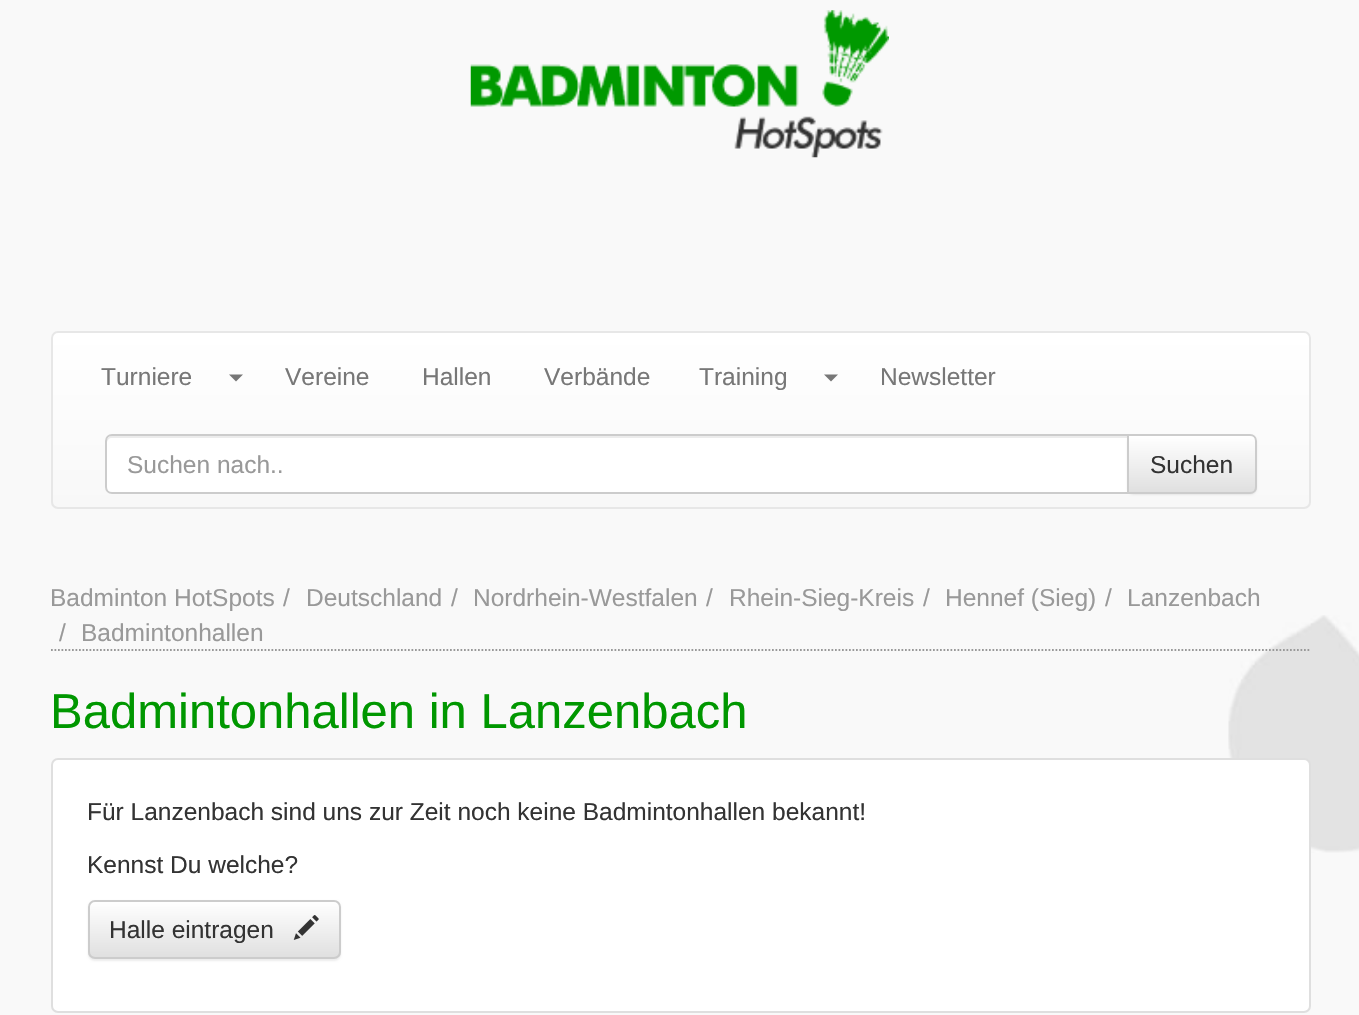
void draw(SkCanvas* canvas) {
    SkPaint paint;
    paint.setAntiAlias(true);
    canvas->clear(0xFFF9F9F9);
    canvas->drawImageRect(SkImages::DeferredFromEncodedData(SkData::MakeFromFileName("img1.png")), SkRect::MakeXYWH(1228, 615, 131, 238), SkSamplingOptions());
    canvas->drawImageRect(SkImages::DeferredFromEncodedData(SkData::MakeFromFileName("img2.png")), SkRect::MakeXYWH(470, 10, 419, 148), SkSamplingOptions());
    canvas->save();
    canvas->clipPath(SkPathBuilder().moveTo(58, 331).lineTo(1304, 331).cubicTo(1308, 331, 1311, 334, 1311, 338).lineTo(1311, 502).cubicTo(1311, 506, 1308, 509, 1304, 509).lineTo(58, 509).cubicTo(54, 509, 51, 506, 51, 502).lineTo(51, 338).cubicTo(51, 334, 54, 331, 58, 331).close().detach(), true);
    {
        const SkColor colors[] = {0xFFFFFFFF, 0xFFF8F8F8};
        const float stops[] = {0, 1};
        const SkPoint ends[] = {{681, 332}, {681, 508}};
        paint.setShader(SkGradientShader::MakeLinear(ends, colors, stops, 2, SkTileMode::kClamp));
        paint.setAlpha(255);
    }
    canvas->drawRect(SkRect::MakeXYWH(51, 333, 1260, 175), paint);
    canvas->restore();
    paint.setStyle(SkPaint::kStroke_Style);
    paint.setStrokeWidth(2);
    paint.setShader(nullptr);
    paint.setColor(0xFFE7E7E7);
    canvas->drawRoundRect(SkRect::MakeXYWH(52, 332, 1258, 176), 6, 6, paint);
    SkFont font1(fontMgr->matchFamilyStyle("Liberation Sans", SkFontStyle::Normal()), 24.5f);
    font1.setSubpixel(true);
    paint.setStyle(SkPaint::kFill_Style);
    paint.setColor(0xFF777777);
    canvas->drawString("Turniere", 101, 385, font1, paint);
    canvas->drawPath(SkPathBuilder().moveTo(229, 374.5f).lineTo(243, 374.5f).lineTo(236, 381.5f).close().detach(), paint);
    canvas->drawString("Vereine", 285, 385, font1, paint);
    canvas->drawString("Hallen", 422, 385, font1, paint);
    canvas->drawString("Verbände", 544, 385, font1, paint);
    canvas->drawString("Training", 699, 385, font1, paint);
    canvas->drawPath(SkPathBuilder().moveTo(824, 374.5f).lineTo(838, 374.5f).lineTo(831, 381.5f).close().detach(), paint);
    canvas->drawString("Newsletter", 880, 385, font1, paint);
    paint.setColor(0xFFFFFFFF);
    canvas->drawPath(SkPathBuilder().moveTo(112, 434).lineTo(1129, 434).lineTo(1129, 494).lineTo(112, 494).cubicTo(108, 494, 105, 491, 105, 487).lineTo(105, 441).cubicTo(105, 437, 108, 434, 112, 434).close().detach(), paint);
    paint.setColor(0xFFECECEC);
    canvas->drawPath(SkPathBuilder().moveTo(112, 438).lineTo(1127, 438).lineTo(1127, 436).lineTo(112, 436).cubicTo(109, 436, 107, 438, 107, 441).lineTo(107, 443).cubicTo(107, 440, 109, 438, 112, 438).close().detach(), paint);
    paint.setStyle(SkPaint::kStroke_Style);
    paint.setColor(0xFFCCCCCC);
    canvas->drawPath(SkPathBuilder().moveTo(112, 435).lineTo(1128, 435).lineTo(1128, 493).lineTo(112, 493).cubicTo(108.5f, 493, 106, 490.5f, 106, 487).lineTo(106, 441).cubicTo(106, 437.5f, 108.5f, 435, 112, 435).close().detach(), paint);
    paint.setStyle(SkPaint::kFill_Style);
    paint.setColor(0xFF999999);
    canvas->drawString("Suchen nach..", 127, 473, font1, paint);
    paint.setColor(0x12000000);
    paint.setMaskFilter(SkMaskFilter::MakeBlur(kNormal_SkBlurStyle, 1));
    canvas->drawRoundRect(SkRect::MakeXYWH(1127, 436, 130, 59), 7, 7, paint);
    paint.setMaskFilter(nullptr);
    canvas->save();
    canvas->clipPath(SkPathBuilder().moveTo(1127, 434).lineTo(1250, 434).cubicTo(1254, 434, 1257, 437, 1257, 441).lineTo(1257, 487).cubicTo(1257, 491, 1254, 494, 1250, 494).lineTo(1127, 494).close().detach(), true);
    {
        const SkColor colors[] = {0xFFFFFFFF, 0xFFE0E0E0};
        const float stops[] = {0, 1};
        const SkPoint ends[] = {{1192, 436}, {1192, 492}};
        paint.setShader(SkGradientShader::MakeLinear(ends, colors, stops, 2, SkTileMode::kClamp));
        paint.setAlpha(255);
    }
    canvas->drawRect(SkRect::MakeXYWH(1129, 436, 128, 56), paint);
    canvas->restore();
    paint.setStyle(SkPaint::kStroke_Style);
    paint.setShader(nullptr);
    paint.setColor(0xFFCCCCCC);
    canvas->drawPath(SkPathBuilder().moveTo(1128, 435).lineTo(1250, 435).cubicTo(1253.5f, 435, 1256, 437.5f, 1256, 441).lineTo(1256, 487).cubicTo(1256, 490.5f, 1253.5f, 493, 1250, 493).lineTo(1128, 493).close().detach(), paint);
    paint.setStyle(SkPaint::kFill_Style);
    paint.setColor(0xFF333333);
    canvas->drawString("Suchen", 1150, 473, font1, paint);
    paint.setStyle(SkPaint::kStroke_Style);
    paint.setStrokeWidth(1.8f);
    paint.setColor(0xFF999999);
    paint.setPathEffect(SkDashPathEffect::Make({{1.75f, 1.75f}}, 0));
    canvas->drawPath(SkPathBuilder().moveTo(51, 650).lineTo(1311, 650).detach(), paint);
    paint.setPathEffect(nullptr);
    paint.setStyle(SkPaint::kFill_Style);
    canvas->drawString("Badminton HotSpots", 50, 606, font1, paint);
    canvas->drawString("/", 283, 606, font1, paint);
    canvas->drawString("Deutschland", 306, 606, font1, paint);
    canvas->drawString("/", 451, 606, font1, paint);
    canvas->drawString("Nordrhein-Westfalen", 473, 606, font1, paint);
    canvas->drawString("/", 706, 606, font1, paint);
    canvas->drawString("Rhein-Sieg-Kreis", 729, 606, font1, paint);
    canvas->drawString("/", 923, 606, font1, paint);
    canvas->drawString("Hennef (Sieg)", 945, 606, font1, paint);
    canvas->drawString("/", 1105, 606, font1, paint);
    canvas->drawString("Lanzenbach", 1127, 606, font1, paint);
    canvas->drawString("/", 59, 641, font1, paint);
    canvas->drawString("Badmintonhallen", 81, 641, font1, paint);
    SkFont font2(fontMgr->matchFamilyStyle("Liberation Sans", SkFontStyle::Normal()), 49);
    font2.setSubpixel(true);
    paint.setColor(0xFF009700);
    canvas->drawString("Badmintonhallen in Lanzenbach", 50, 728, font2, paint);
    paint.setColor(0xFFFFFFFF);
    canvas->drawRoundRect(SkRect::MakeXYWH(52, 759, 1258, 253), 6, 6, paint);
    paint.setStyle(SkPaint::kStroke_Style);
    paint.setStrokeWidth(2);
    paint.setColor(0xFFDFDFDF);
    canvas->drawRoundRect(SkRect::MakeXYWH(52, 759, 1258, 253), 6, 6, paint);
    paint.setStyle(SkPaint::kFill_Style);
    paint.setColor(0xFF333333);
    canvas->drawString("Für Lanzenbach sind uns zur Zeit noch keine Badmintonhallen bekannt!", 87, 820, font1, paint);
    canvas->drawString("Kennst Du welche?", 87, 873, font1, paint);
    paint.setColor(0x12000000);
    paint.setMaskFilter(SkMaskFilter::MakeBlur(kNormal_SkBlurStyle, 1));
    canvas->drawRoundRect(SkRect::MakeXYWH(88, 901, 253, 60), 7, 7, paint);
    paint.setMaskFilter(nullptr);
    canvas->save();
    canvas->clipPath(SkPathBuilder().moveTo(95, 900).lineTo(334, 900).cubicTo(338, 900, 341, 903, 341, 907).lineTo(341, 952).cubicTo(341, 956, 338, 959, 334, 959).lineTo(95, 959).cubicTo(91, 959, 88, 956, 88, 952).lineTo(88, 907).cubicTo(88, 903, 91, 900, 95, 900).close().detach(), true);
    {
        const SkColor colors[] = {0xFFFFFFFF, 0xFFE0E0E0};
        const float stops[] = {0, 1};
        const SkPoint ends[] = {{214, 901}, {214, 957}};
        paint.setShader(SkGradientShader::MakeLinear(ends, colors, stops, 2, SkTileMode::kClamp));
        paint.setAlpha(255);
    }
    canvas->drawRect(SkRect::MakeXYWH(88, 901, 253, 56), paint);
    canvas->restore();
    paint.setStyle(SkPaint::kStroke_Style);
    paint.setShader(nullptr);
    paint.setColor(0xFFCCCCCC);
    canvas->drawRoundRect(SkRect::MakeXYWH(89, 901, 251, 57), 6, 6, paint);
    paint.setStyle(SkPaint::kFill_Style);
    paint.setColor(0xFF333333);
    canvas->drawString("Halle eintragen", 109, 938, font1, paint);
    canvas->drawImageRect(SkImages::DeferredFromEncodedData(SkData::MakeFromFileName("img3.png")), SkRect::MakeXYWH(293, 915, 26, 25), SkSamplingOptions());
}
